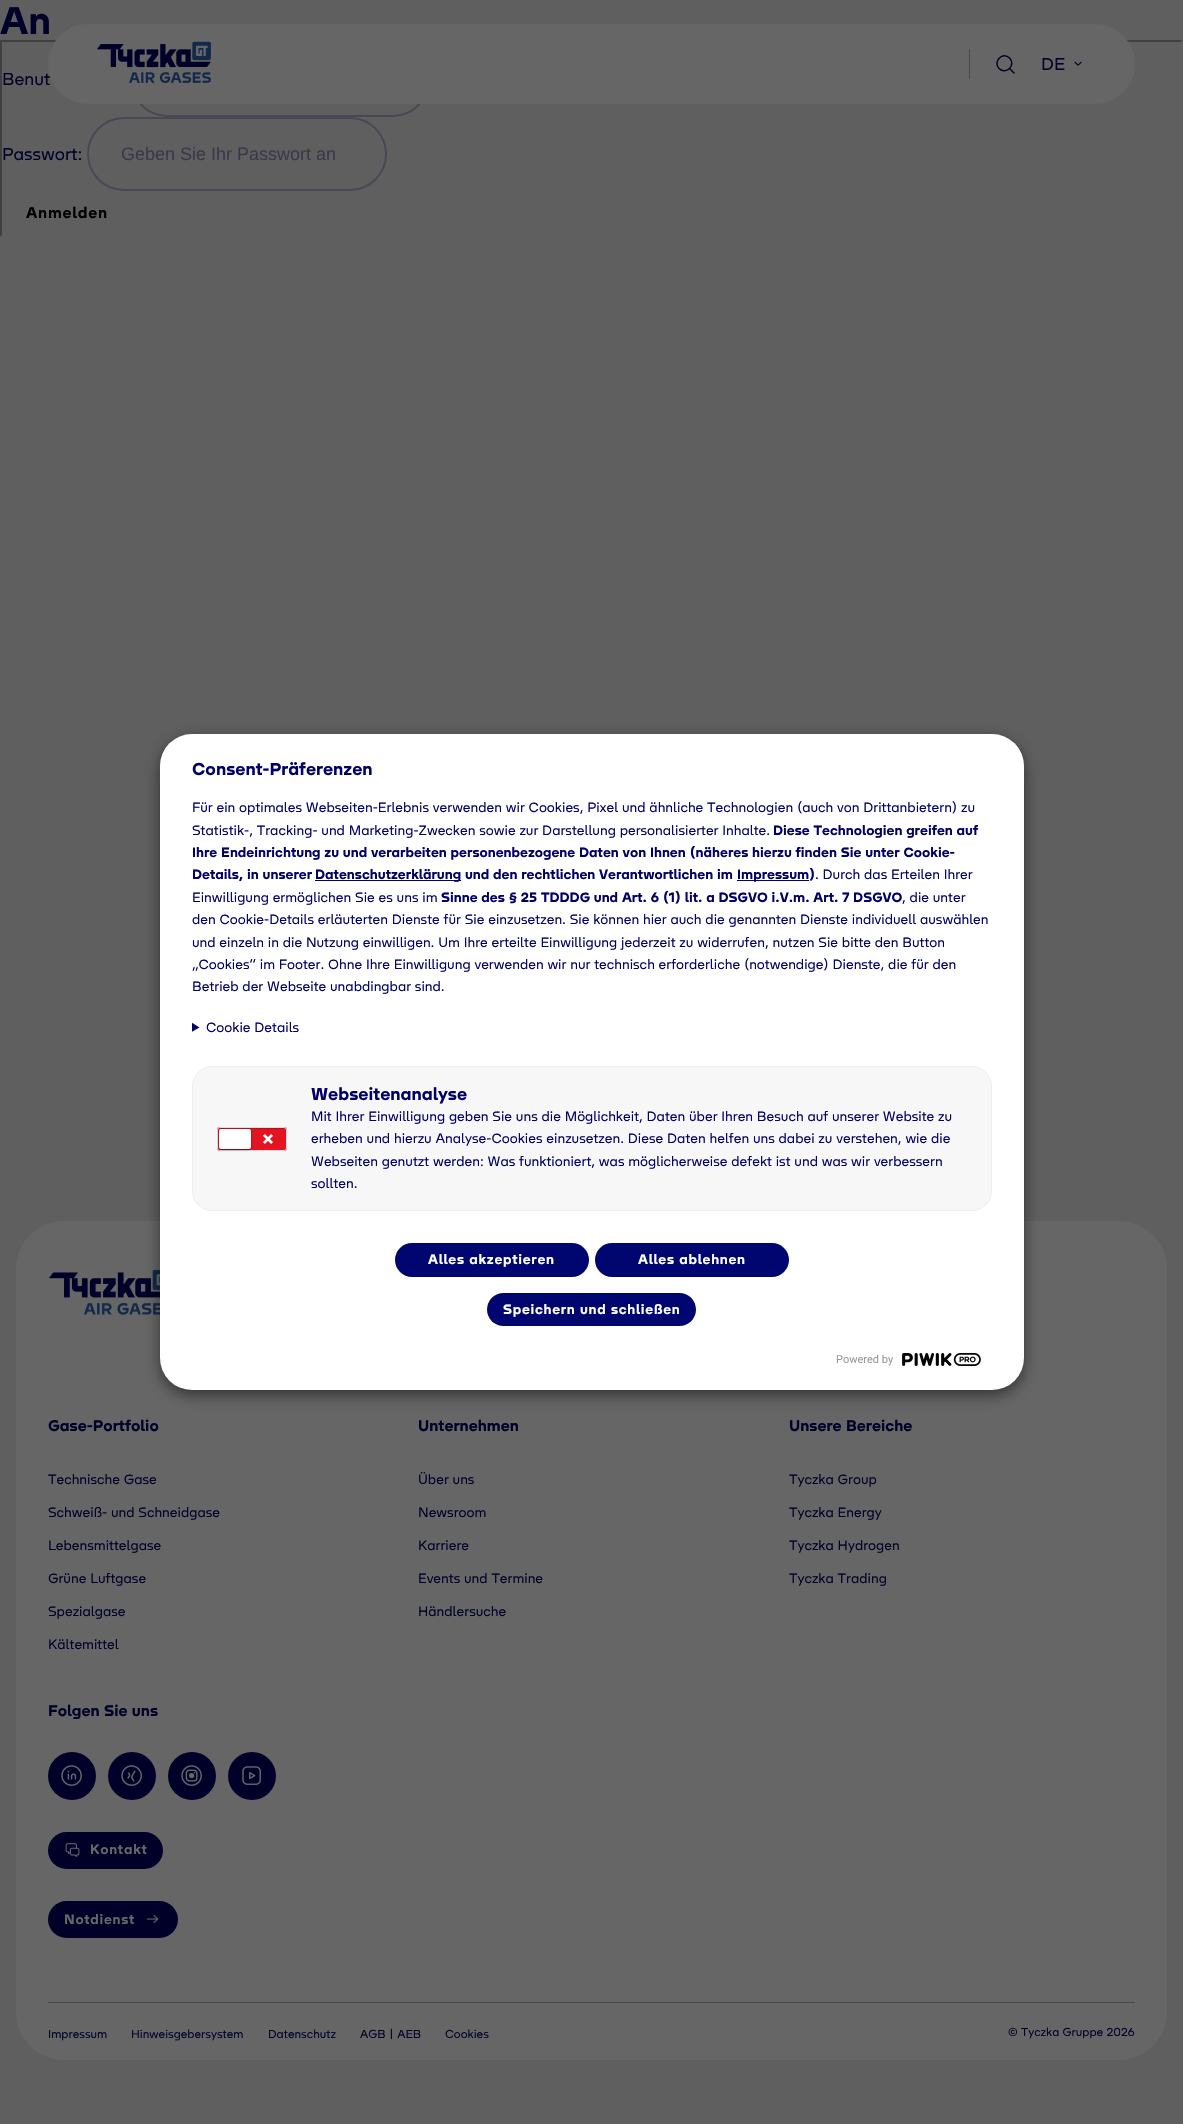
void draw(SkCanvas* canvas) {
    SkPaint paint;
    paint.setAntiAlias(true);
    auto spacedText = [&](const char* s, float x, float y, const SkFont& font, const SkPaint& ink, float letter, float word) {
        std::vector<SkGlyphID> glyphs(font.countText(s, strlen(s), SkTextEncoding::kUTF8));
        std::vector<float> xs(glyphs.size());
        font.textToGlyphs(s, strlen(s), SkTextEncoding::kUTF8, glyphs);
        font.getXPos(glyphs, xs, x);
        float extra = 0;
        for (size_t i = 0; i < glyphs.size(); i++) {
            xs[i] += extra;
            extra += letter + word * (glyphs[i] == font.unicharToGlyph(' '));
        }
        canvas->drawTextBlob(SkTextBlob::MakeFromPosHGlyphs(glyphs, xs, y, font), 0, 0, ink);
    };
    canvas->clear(0xFF605F5F);
    SkFont font1(fontMgr->matchFamilyStyle("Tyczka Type", SkFontStyle::Bold()), 40);
    font1.setSubpixel(true);
    paint.setColor(0xFF000029);
    canvas->drawString("An", 0, 34, font1, paint);
    paint.setColor(0xFF404040);
    canvas->drawPath(SkPathBuilder().moveTo(0, 40).lineTo(1183, 40).lineTo(1181, 42).lineTo(2, 42).close().detach(), paint);
    SkFont font2(fontMgr->matchFamilyStyle("Tyczka Type", SkFontStyle::Normal()), 18);
    font2.setSubpixel(true);
    paint.setColor(0xFF000029);
    canvas->drawString("Benut", 2, 85, font2, paint);
    paint.setStyle(SkPaint::kStroke_Style);
    paint.setStrokeWidth(2);
    paint.setColor(0xFF484854);
    canvas->drawRoundRect(SkRect::MakeXYWH(131, 43, 298, 73), 36.5f, 36.5f, paint);
    paint.setStyle(SkPaint::kFill_Style);
    paint.setColor(0xFF666666);
    canvas->drawRoundRect(SkRect::MakeXYWH(48, 24, 1087, 80), 40, 40, paint);
    canvas->drawImageRect(SkImages::DeferredFromEncodedData(SkData::MakeFromFileName("img1.png")), SkRect::MakeXYWH(97, 41, 114, 42), SkSamplingOptions());
    paint.setColor(0xFF4D4A44);
    canvas->drawRect(SkRect::MakeXYWH(969, 49, 1, 30), paint);
    paint.setStyle(SkPaint::kStroke_Style);
    paint.setStrokeWidth(1.5f);
    paint.setStrokeCap(SkPaint::kRound_Cap);
    paint.setStrokeJoin(SkPaint::kRound_Join);
    paint.setColor(0xFF000029);
    canvas->drawPath(SkPathBuilder().moveTo(1009.5f, 58).cubicTo(1016.5f, 65, 1006, 75.5f, 999, 68.5f).cubicTo(992.5f, 61.5f, 1003, 51, 1009.5f, 58).moveTo(1010, 69).lineTo(1014, 73).detach(), paint);
    paint.setStyle(SkPaint::kFill_Style);
    canvas->drawString("DE", 1041, 70, font2, paint);
    canvas->drawImageRect(SkImages::DeferredFromEncodedData(SkData::MakeFromFileName("img2.png")), SkRect::MakeXYWH(1074, 61, 8, 5), SkSamplingOptions());
    paint.setColor(0xFF606060);
    canvas->drawPath(SkPathBuilder().moveTo(1183, 40).lineTo(1183, 237).lineTo(1181, 235).lineTo(1181, 42).close().detach(), paint);
    paint.setColor(0xFF404040);
    canvas->drawPath(SkPathBuilder().moveTo(0, 237).lineTo(0, 40).lineTo(2, 42).lineTo(2, 235).close().detach(), paint);
    paint.setColor(0xFF000029);
    canvas->drawString("Passwort:", 2, 160, font2, paint);
    paint.setStyle(SkPaint::kStroke_Style);
    paint.setStrokeWidth(2);
    paint.setStrokeCap(SkPaint::kButt_Cap);
    paint.setStrokeJoin(SkPaint::kMiter_Join);
    paint.setColor(0xFF484854);
    canvas->drawRoundRect(SkRect::MakeXYWH(88, 118, 298, 72), 36, 36, paint);
    SkFont font3(fontMgr->matchFamilyStyle("Liberation Sans", SkFontStyle::Normal()), 18);
    font3.setSubpixel(true);
    paint.setStyle(SkPaint::kFill_Style);
    paint.setColor(0xFF3A394A);
    canvas->drawString("Geben Sie Ihr Passwort an", 121, 160, font3, paint);
    SkFont font4(fontMgr->matchFamilyStyle("Tyczka Type", SkFontStyle::Bold()), 16);
    font4.setSubpixel(true);
    paint.setColor(0xFF000000);
    spacedText("Anmelden", 26, 218, font4, paint, 0.75f, 0);
    paint.setColor(0xFF666666);
    canvas->drawRoundRect(SkRect::MakeXYWH(16, 1221, 1151, 839), 48, 48, paint);
    canvas->drawImageRect(SkImages::DeferredFromEncodedData(SkData::MakeFromFileName("img5.png")), SkRect::MakeXYWH(49, 1269, 111, 46), SkSamplingOptions());
    paint.setColor(0x80000000);
    paint.setMaskFilter(SkMaskFilter::MakeBlur(kNormal_SkBlurStyle, 7.5f));
    canvas->drawRoundRect(SkRect::MakeXYWH(160, 739, 864, 656), 32, 32, paint);
    paint.setMaskFilter(nullptr);
    paint.setColor(0xFFFFFFFF);
    canvas->drawRoundRect(SkRect::MakeXYWH(160, 734, 864, 656), 32, 32, paint);
    SkFont font5(fontMgr->matchFamilyStyle("Tyczka Type", SkFontStyle::Bold()), 18);
    font5.setSubpixel(true);
    paint.setColor(0xFF000066);
    canvas->drawString("Consent-Präferenzen", 192, 775, font5, paint);
    SkFont font6(fontMgr->matchFamilyStyle("Tyczka Type", SkFontStyle::Normal()), 14);
    font6.setSubpixel(true);
    canvas->drawString("Für ein optimales Webseiten-Erlebnis verwenden wir Cookies, Pixel und ähnliche Technologien (auch von Drittanbietern) zu", 192, 812, font6, paint);
    canvas->drawString("Statistik-, Tracking- und Marketing-Zwecken sowie zur Darstellung personalisierter Inhalte.", 192, 835, font6, paint);
    SkFont font7(fontMgr->matchFamilyStyle("Tyczka Type", SkFontStyle::Bold()), 14);
    font7.setSubpixel(true);
    canvas->drawString("Diese Technologien greifen auf", 773, 835, font7, paint);
    canvas->drawString("Ihre Endeinrichtung zu und verarbeiten personenbezogene Daten von Ihnen (näheres hierzu finden Sie unter Cookie-", 192, 857, font7, paint);
    canvas->drawString("Details, in unserer", 192, 879, font7, paint);
    canvas->drawRect(SkRect::MakeXYWH(315, 880, 146, 1), paint);
    canvas->drawString("Datenschutzerklärung und den rechtlichen Verantwortlichen im", 315, 879, font7, paint);
    canvas->drawRect(SkRect::MakeXYWH(737, 880, 72, 1), paint);
    canvas->drawString("Impressum)", 737, 879, font7, paint);
    canvas->drawString(". Durch das Erteilen Ihrer", 815, 879, font6, paint);
    canvas->drawString("Einwilligung ermöglichen Sie es uns im", 192, 902, font6, paint);
    canvas->drawString("Sinne des § 25 TDDDG und Art. 6 (1) lit. a DSGVO i.V.m. Art. 7 DSGVO", 441, 902, font7, paint);
    canvas->drawString(", die unter", 902, 902, font6, paint);
    canvas->drawString("den Cookie-Details erläuterten Dienste für Sie einzusetzen. Sie können hier auch die genannten Dienste individuell auswählen", 192, 924, font6, paint);
    canvas->drawString("und einzeln in die Nutzung einwilligen. Um Ihre erteilte Einwilligung jederzeit zu widerrufen, nutzen Sie bitte den Button", 192, 947, font6, paint);
    canvas->drawString("„Cookies“ im Footer. Ohne Ihre Einwilligung verwenden wir nur technisch erforderliche (notwendige) Dienste, die für den", 192, 969, font6, paint);
    canvas->drawString("Betrieb der Webseite unabdingbar sind.", 192, 991, font6, paint);
    canvas->save();
    canvas->clipRect(SkRect::MakeXYWH(192, 758, 800, 453));
    canvas->drawPath(SkPathBuilder().moveTo(191.5f, 1022.5f).lineTo(199.5f, 1027.5f).lineTo(191.5f, 1032).close().detach(), paint);
    canvas->restore();
    canvas->drawString("Cookie Details", 206, 1032, font6, paint);
    paint.setColor(0xFFF7F7F7);
    canvas->drawRoundRect(SkRect::MakeXYWH(192.5f, 1066.5f, 799, 144), 19.5f, 19.5f, paint);
    paint.setStyle(SkPaint::kStroke_Style);
    paint.setStrokeWidth(1);
    paint.setColor(0xFFEEEEEE);
    canvas->drawRoundRect(SkRect::MakeXYWH(192.5f, 1066.5f, 799, 144), 19.5f, 19.5f, paint);
    paint.setStyle(SkPaint::kFill_Style);
    paint.setColor(0xFFE41322);
    canvas->drawRoundRect(SkRect::MakeXYWH(217, 1127, 70, 24), 3, 3, paint);
    paint.setColor(0xFFB60F1B);
    canvas->drawPath(SkPathBuilder().moveTo(220, 1129).lineTo(285, 1129).lineTo(286, 1131).cubicTo(286, 1125, 277, 1128, 273, 1128).lineTo(231, 1128).cubicTo(227, 1128, 218, 1125, 218, 1131).cubicTo(218, 1130, 219, 1129, 220, 1129).close().detach(), paint);
    paint.setStyle(SkPaint::kStroke_Style);
    paint.setColor(0xFFDDDDDD);
    canvas->drawRoundRect(SkRect::MakeXYWH(217.5f, 1127.5f, 69, 23), 2.5f, 2.5f, paint);
    paint.setStyle(SkPaint::kFill_Style);
    paint.setColor(0x80000000);
    paint.setMaskFilter(SkMaskFilter::MakeBlur(kNormal_SkBlurStyle, 1));
    canvas->drawRoundRect(SkRect::MakeXYWH(219, 1130, 32, 20), 2, 2, paint);
    paint.setMaskFilter(nullptr);
    paint.setColor(0xFFFFFFFF);
    canvas->drawRoundRect(SkRect::MakeXYWH(219, 1129, 32, 20), 2, 2, paint);
    canvas->drawImageRect(SkImages::DeferredFromEncodedData(SkData::MakeFromFileName("img3.png")), SkRect::MakeXYWH(263, 1134, 10, 10), SkSamplingOptions());
    paint.setColor(0xFF000066);
    canvas->drawString("Webseitenanalyse", 311, 1100, font5, paint);
    canvas->drawString("Mit Ihrer Einwilligung geben Sie uns die Möglichkeit, Daten über Ihren Besuch auf unserer Website zu", 311, 1121, font6, paint);
    canvas->drawString("erheben und hierzu Analyse-Cookies einzusetzen. Diese Daten helfen uns dabei zu verstehen, wie die", 311, 1143, font6, paint);
    canvas->drawString("Webseiten genutzt werden: Was funktioniert, was möglicherweise defekt ist und was wir verbessern", 311, 1166, font6, paint);
    canvas->drawString("sollten.", 311, 1188, font6, paint);
    paint.setColor(0xFF00066F);
    canvas->drawRoundRect(SkRect::MakeXYWH(395, 1243, 194, 34), 17, 17, paint);
    paint.setColor(0xFFFFFFFF);
    spacedText("Alles akzeptieren", 428, 1264, font7, paint, 0.7f, 0);
    paint.setColor(0xFF00066F);
    canvas->drawRoundRect(SkRect::MakeXYWH(595, 1243, 194, 34), 17, 17, paint);
    paint.setColor(0xFFFFFFFF);
    spacedText("Alles ablehnen", 638, 1264, font7, paint, 0.7f, 0);
    paint.setColor(0xFF00066F);
    canvas->drawRoundRect(SkRect::MakeXYWH(487, 1293, 209, 33), 16.5f, 16.5f, paint);
    paint.setColor(0xFFFFFFFF);
    spacedText("Speichern und schließen", 503, 1314, font7, paint, 0.7f, 0);
    SkFont font8(fontMgr->matchFamilyStyle("Roboto", SkFontStyle::Normal()), 11);
    font8.setSubpixel(true);
    paint.setColor(0xFF999999);
    canvas->drawString("Powered by", 836, 1363, font8, paint);
    canvas->drawImageRect(SkImages::DeferredFromEncodedData(SkData::MakeFromFileName("img4.png")), SkRect::MakeXYWH(902, 1353, 79, 13), SkSamplingOptions());
    paint.setColor(0xFF000029);
    canvas->drawString("Gase-Portfolio", 48, 1431, font4, paint);
    canvas->drawString("Technische Gase", 48, 1484, font6, paint);
    canvas->drawString("Schweiß- und Schneidgase", 48, 1517, font6, paint);
    canvas->drawString("Lebensmittelgase", 48, 1550, font6, paint);
    canvas->drawString("Grüne Luftgase", 48, 1583, font6, paint);
    canvas->drawString("Spezialgase", 48, 1616, font6, paint);
    canvas->drawString("Kältemittel", 48, 1649, font6, paint);
    canvas->drawString("Unternehmen", 418, 1431, font4, paint);
    canvas->drawString("Über uns", 418, 1484, font6, paint);
    canvas->drawString("Newsroom", 418, 1517, font6, paint);
    canvas->drawString("Karriere", 418, 1550, font6, paint);
    canvas->drawString("Events und Termine", 418, 1583, font6, paint);
    canvas->drawString("Händlersuche", 418, 1616, font6, paint);
    canvas->drawString("Unsere Bereiche", 789, 1431, font4, paint);
    canvas->drawString("Tyczka Group", 789, 1484, font6, paint);
    canvas->drawString("Tyczka Energy", 789, 1517, font6, paint);
    canvas->drawString("Tyczka Hydrogen", 789, 1550, font6, paint);
    canvas->drawString("Tyczka Trading", 789, 1583, font6, paint);
    canvas->drawString("Folgen Sie uns", 48, 1716, font4, paint);
    canvas->drawCircle(72, 1776, 24, paint);
    canvas->drawImageRect(SkImages::DeferredFromEncodedData(SkData::MakeFromFileName("img6.png")), SkRect::MakeXYWH(61, 1765, 21, 21), SkSamplingOptions());
    canvas->drawCircle(132, 1776, 24, paint);
    canvas->drawImageRect(SkImages::DeferredFromEncodedData(SkData::MakeFromFileName("img7.png")), SkRect::MakeXYWH(121, 1765, 21, 21), SkSamplingOptions());
    canvas->drawCircle(192, 1776, 24, paint);
    canvas->drawImageRect(SkImages::DeferredFromEncodedData(SkData::MakeFromFileName("img8.png")), SkRect::MakeXYWH(181, 1765, 21, 21), SkSamplingOptions());
    canvas->drawCircle(252, 1776, 24, paint);
    canvas->drawImageRect(SkImages::DeferredFromEncodedData(SkData::MakeFromFileName("img9.png")), SkRect::MakeXYWH(242, 1766, 19, 19), SkSamplingOptions());
    canvas->drawRoundRect(SkRect::MakeXYWH(48, 1832, 115, 37), 18.5f, 18.5f, paint);
    canvas->drawImageRect(SkImages::DeferredFromEncodedData(SkData::MakeFromFileName("img10.png")), SkRect::MakeXYWH(65, 1843, 15, 14), SkSamplingOptions());
    paint.setColor(0xFF666666);
    spacedText("Kontakt", 90, 1854, font7, paint, 0.7f, 0);
    paint.setColor(0xFF000029);
    canvas->drawRoundRect(SkRect::MakeXYWH(48, 1901, 130, 37), 18.5f, 18.5f, paint);
    paint.setColor(0xFF666666);
    spacedText("Notdienst", 64, 1924, font7, paint, 0.7f, 0);
    canvas->drawImageRect(SkImages::DeferredFromEncodedData(SkData::MakeFromFileName("img11.png")), SkRect::MakeXYWH(146, 1915, 13, 9), SkSamplingOptions());
    paint.setColor(0xFF484854);
    canvas->drawRect(SkRect::MakeXYWH(48, 2002, 1087, 1), paint);
    SkFont font9(fontMgr->matchFamilyStyle("Tyczka Type", SkFontStyle::Normal()), 12);
    font9.setSubpixel(true);
    paint.setColor(0xFF000029);
    canvas->drawString("Impressum", 48, 2038, font9, paint);
    canvas->drawString("Hinweisgebersystem", 131, 2038, font9, paint);
    canvas->drawString("Datenschutz", 268, 2038, font9, paint);
    canvas->drawString("AGB | AEB", 360, 2038, font9, paint);
    canvas->drawString("Cookies", 445, 2038, font9, paint);
    canvas->drawString("© Tyczka Gruppe 2026", 1008, 2036, font9, paint);
}
